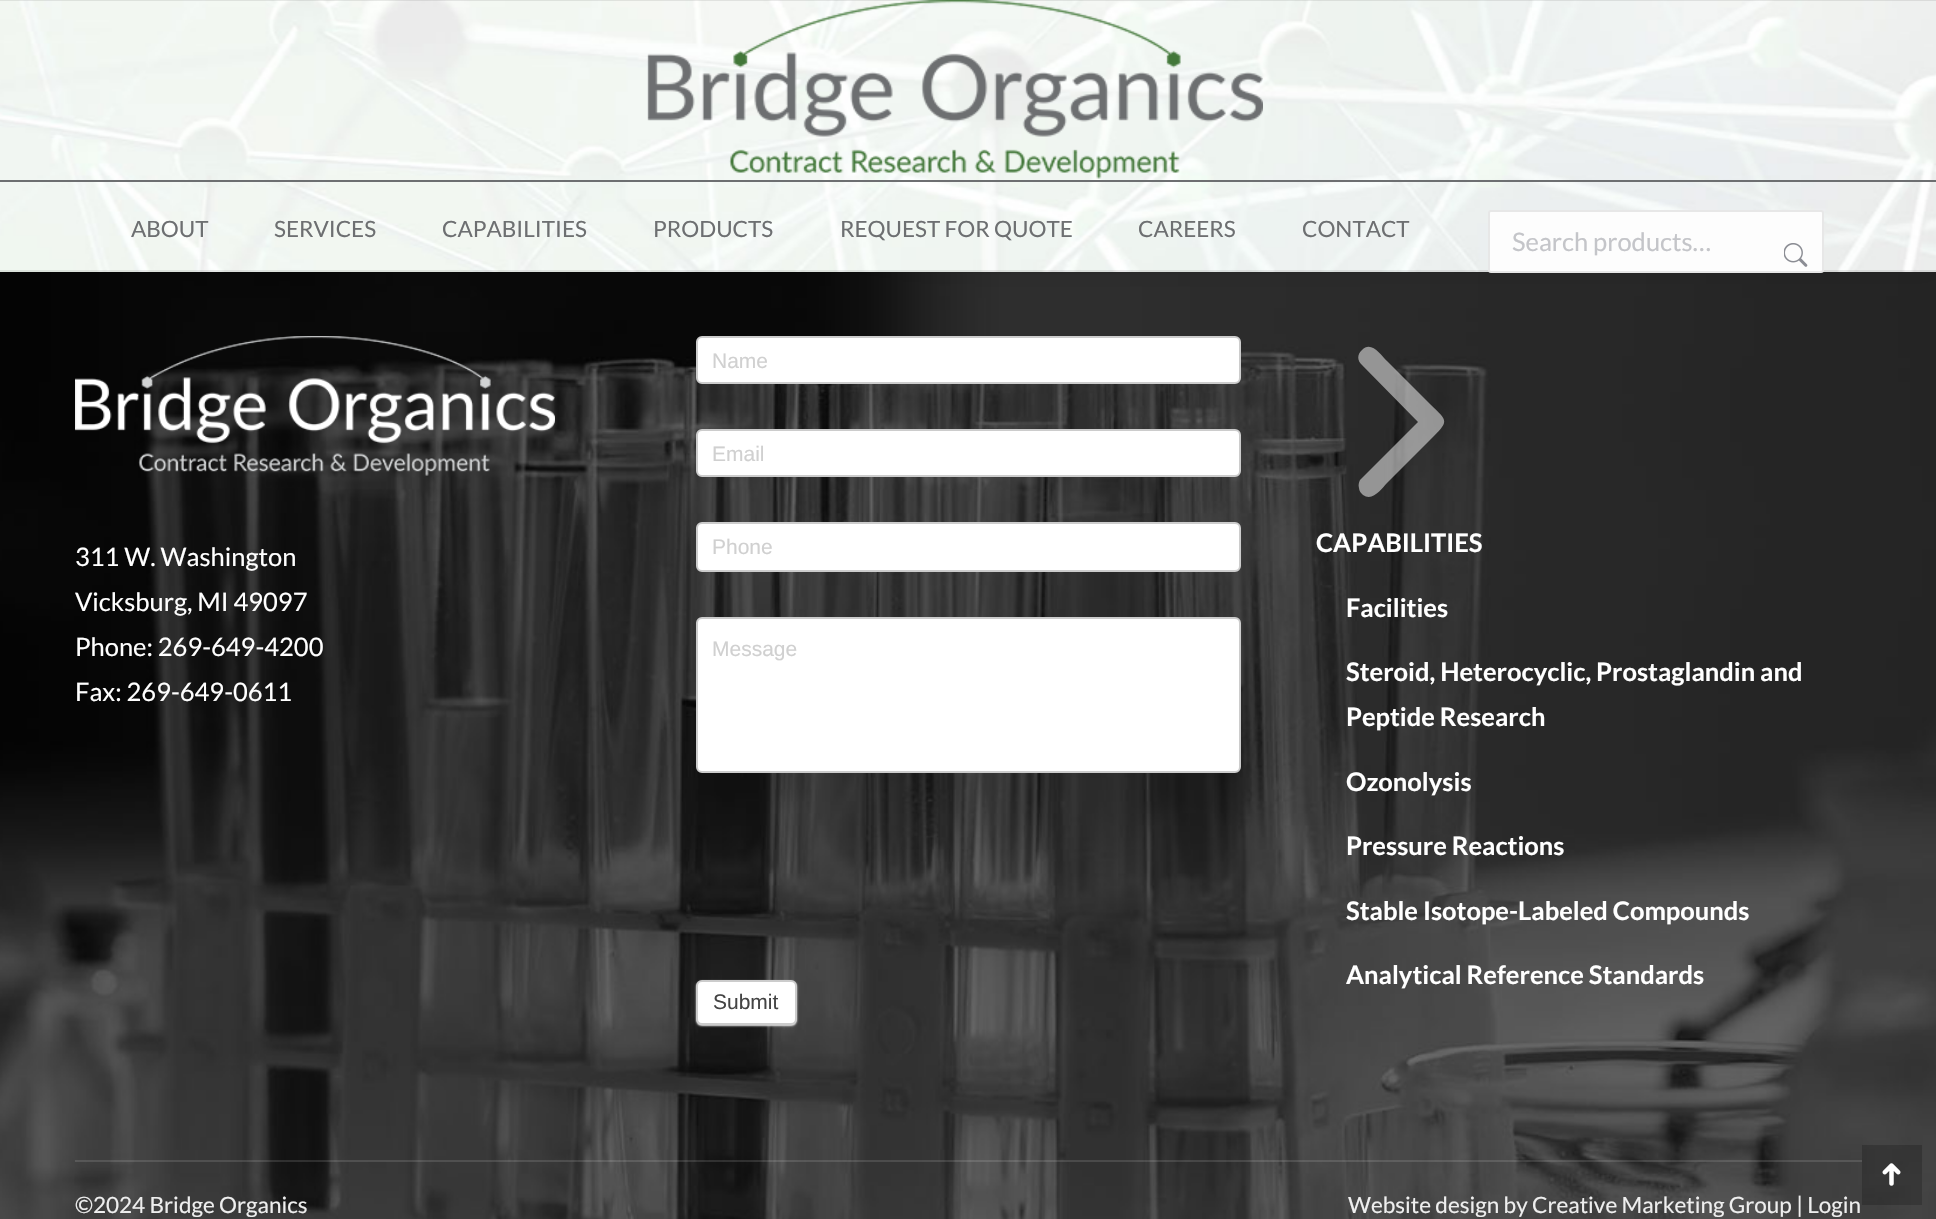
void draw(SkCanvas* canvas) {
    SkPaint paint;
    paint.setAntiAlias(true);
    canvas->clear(0xFFFFFFFF);
    canvas->drawImageRect(SkImages::DeferredFromEncodedData(SkData::MakeFromFileName("img4.png")), SkRect::MakeXYWH(0, 272, 1936, 947), SkSamplingOptions());
    paint.setColor(0x12000000);
    paint.setMaskFilter(SkMaskFilter::MakeBlur(kNormal_SkBlurStyle, 11));
    canvas->drawRect(SkRect::MakeXYWH(-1, -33, 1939, 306), paint);
    paint.setMaskFilter(nullptr);
    canvas->drawImageRect(SkImages::DeferredFromEncodedData(SkData::MakeFromFileName("img1.png")), SkRect::MakeXYWH(0, 0, 1936, 272), SkSamplingOptions());
    paint.setColor(0x1C333333);
    canvas->drawRect(SkRect::MakeXYWH(0, 270, 1936, 2), paint);
    canvas->drawRect(SkRect::MakeXYWH(0, 0, 1936, 1), paint);
    canvas->drawImageRect(SkImages::DeferredFromEncodedData(SkData::MakeFromFileName("img2.png")), SkRect::MakeXYWH(647, 0, 616, 179), SkSamplingOptions());
    paint.setColor(0xFF6D6F71);
    canvas->drawRect(SkRect::MakeXYWH(0, 180, 1936, 2), paint);
    SkFont font1(fontMgr->matchFamilyStyle("Lato", SkFontStyle::Normal()), 22.5f);
    font1.setSubpixel(true);
    canvas->drawString("ABOUT", 131, 237, font1, paint);
    canvas->drawString("SERVICES", 274, 237, font1, paint);
    canvas->drawString("CAPABILITIES", 442, 237, font1, paint);
    canvas->drawString("PRODUCTS", 653, 237, font1, paint);
    canvas->drawString("REQUEST FOR QUOTE", 840, 237, font1, paint);
    canvas->drawString("CAREERS", 1138, 237, font1, paint);
    canvas->drawString("CONTACT", 1302, 237, font1, paint);
    paint.setColor(0xFFFDFDFD);
    canvas->drawRoundRect(SkRect::MakeXYWH(1488, 210, 336, 63), 3, 3, paint);
    paint.setStyle(SkPaint::kStroke_Style);
    paint.setStrokeWidth(2);
    paint.setColor(0x1C333333);
    canvas->drawRoundRect(SkRect::MakeXYWH(1489, 211, 334, 61), 2, 2, paint);
    SkFont font2(fontMgr->matchFamilyStyle("Lato", SkFontStyle::Normal()), 25.5f);
    font2.setSubpixel(true);
    paint.setStyle(SkPaint::kFill_Style);
    paint.setColor(0xFFC4C5C9);
    canvas->drawString("Search products…", 1512, 251, font2, paint);
    canvas->drawImageRect(SkImages::DeferredFromEncodedData(SkData::MakeFromFileName("img3.png")), SkRect::MakeXYWH(1784, 243, 24, 24), SkSamplingOptions());
    canvas->drawImageRect(SkImages::DeferredFromEncodedData(SkData::MakeFromFileName("img5.png")), SkRect::MakeXYWH(75, 336, 480, 140), SkSamplingOptions());
    paint.setColor(0xFFFFFFFF);
    canvas->drawString("311 W. Washington", 75, 566, font2, paint);
    canvas->drawString("Vicksburg, MI 49097", 75, 611, font2, paint);
    canvas->drawString("Phone: 269-649-4200", 75, 656, font2, paint);
    canvas->drawString("Fax: 269-649-0611", 75, 701, font2, paint);
    canvas->drawRoundRect(SkRect::MakeXYWH(697, 337, 543, 46), 5, 5, paint);
    paint.setStyle(SkPaint::kStroke_Style);
    paint.setColor(0xFFCCCCCC);
    canvas->drawRoundRect(SkRect::MakeXYWH(697, 337, 543, 46), 5, 5, paint);
    SkFont font3(fontMgr->matchFamilyStyle("Liberation Sans", SkFontStyle::Normal()), 21);
    font3.setSubpixel(true);
    paint.setStyle(SkPaint::kFill_Style);
    paint.setColor(0xFFD0D0D0);
    canvas->drawString("Name", 712, 368, font3, paint);
    paint.setColor(0xFFFFFFFF);
    canvas->drawRoundRect(SkRect::MakeXYWH(697, 430, 543, 46), 5, 5, paint);
    paint.setStyle(SkPaint::kStroke_Style);
    paint.setColor(0xFFCCCCCC);
    canvas->drawRoundRect(SkRect::MakeXYWH(697, 430, 543, 46), 5, 5, paint);
    paint.setStyle(SkPaint::kFill_Style);
    paint.setColor(0xFFD0D0D0);
    canvas->drawString("Email", 712, 461, font3, paint);
    paint.setColor(0xFFFFFFFF);
    canvas->drawRoundRect(SkRect::MakeXYWH(697, 523, 543, 48), 5, 5, paint);
    paint.setStyle(SkPaint::kStroke_Style);
    paint.setColor(0xFFCCCCCC);
    canvas->drawRoundRect(SkRect::MakeXYWH(697, 523, 543, 48), 5, 5, paint);
    paint.setStyle(SkPaint::kFill_Style);
    paint.setColor(0xFFD0D0D0);
    canvas->drawString("Phone", 712, 554, font3, paint);
    paint.setColor(0xFFFFFFFF);
    canvas->drawRoundRect(SkRect::MakeXYWH(697, 618, 543, 154), 5, 5, paint);
    paint.setStyle(SkPaint::kStroke_Style);
    paint.setColor(0xFFCCCCCC);
    canvas->drawRoundRect(SkRect::MakeXYWH(697, 618, 543, 154), 5, 5, paint);
    paint.setStyle(SkPaint::kFill_Style);
    paint.setColor(0xFFD0D0D0);
    canvas->drawString("Message", 712, 656, font3, paint);
    paint.setColor(0xFFEEEEEE);
    paint.setMaskFilter(SkMaskFilter::MakeBlur(kNormal_SkBlurStyle, 1));
    canvas->drawRoundRect(SkRect::MakeXYWH(696, 981, 101, 45), 6, 6, paint);
    paint.setMaskFilter(nullptr);
    paint.setColor(0xFFFFFFFF);
    canvas->drawRoundRect(SkRect::MakeXYWH(697, 981, 99, 43), 5, 5, paint);
    paint.setStyle(SkPaint::kStroke_Style);
    paint.setColor(0xFFCCCCCC);
    canvas->drawRoundRect(SkRect::MakeXYWH(697, 981, 99, 43), 5, 5, paint);
    paint.setStyle(SkPaint::kFill_Style);
    paint.setColor(0xFF444444);
    canvas->drawString("Submit", 713, 1009, font3, paint);
    paint.setColor(0x80FFFFFF);
    canvas->drawPath(SkPathBuilder().moveTo(1362, 350).cubicTo(1357, 354, 1357, 361, 1362, 365).lineTo(1418, 422).lineTo(1360, 480).cubicTo(1359, 482, 1358, 485, 1359, 488).cubicTo(1359, 491, 1361, 493, 1363, 495).cubicTo(1373, 502, 1382, 488, 1387, 483).lineTo(1430, 440).cubicTo(1449, 421, 1449, 422, 1430, 404).lineTo(1387, 361).cubicTo(1381, 355, 1371, 340, 1362, 350).close().detach(), paint);
    SkFont font4(fontMgr->matchFamilyStyle("Lato", SkFontStyle::Bold()), 25.5f);
    font4.setSubpixel(true);
    paint.setColor(0xFFFFFFFF);
    canvas->drawString("CAPABILITIES", 1316, 552, font4, paint);
    canvas->drawString("Facilities", 1346, 617, font4, paint);
    canvas->drawString("Steroid, Heterocyclic, Prostaglandin and", 1346, 681, font4, paint);
    canvas->drawString("Peptide Research", 1346, 726, font4, paint);
    canvas->drawString("Ozonolysis", 1346, 791, font4, paint);
    canvas->drawString("Pressure Reactions", 1346, 855, font4, paint);
    canvas->drawString("Stable Isotope-Labeled Compounds", 1346, 920, font4, paint);
    canvas->drawString("Analytical Reference Standards", 1346, 984, font4, paint);
    paint.setColor(0x1FFFFFFF);
    canvas->drawRect(SkRect::MakeXYWH(75, 1160, 1787, 2), paint);
    paint.setColor(0xFFEEEEEE);
    canvas->drawString("©2024 Bridge Organics", 75, 1213, font1, paint);
    canvas->drawString("Website design by Creative Marketing Group | Login", 1348, 1213, font1, paint);
    paint.setColor(0x33000000);
    canvas->drawRect(SkRect::MakeXYWH(1862, 1145, 60, 60), paint);
    canvas->drawImageRect(SkImages::DeferredFromEncodedData(SkData::MakeFromFileName("img6.png")), SkRect::MakeXYWH(1882, 1163, 19, 23), SkSamplingOptions());
}
